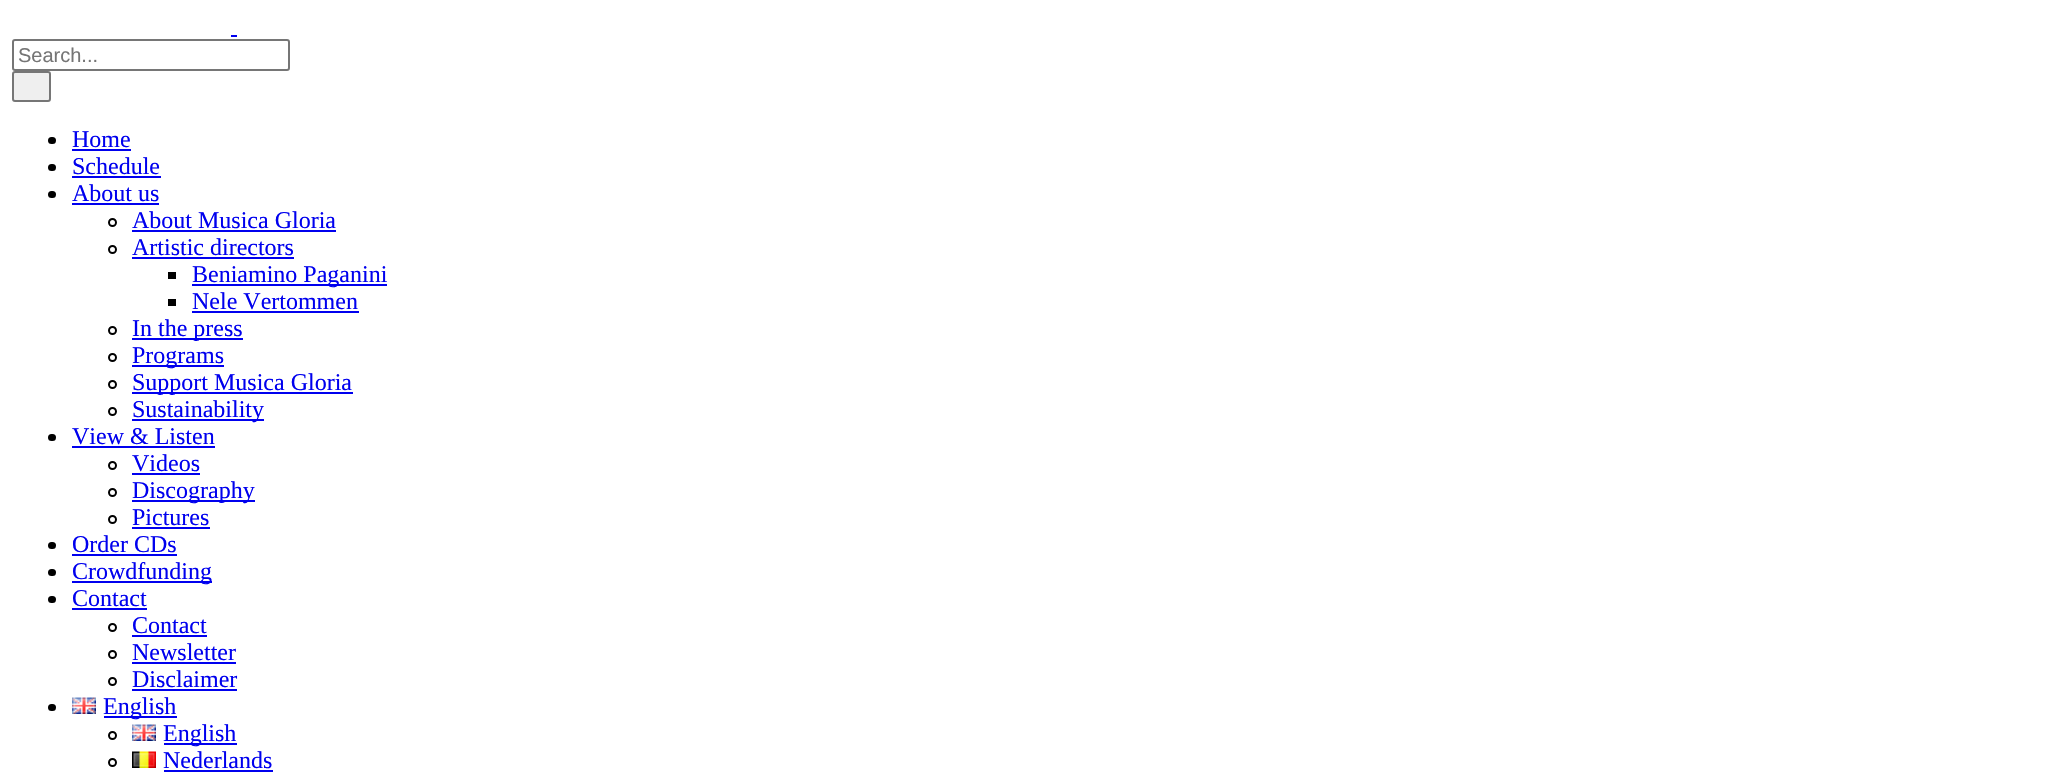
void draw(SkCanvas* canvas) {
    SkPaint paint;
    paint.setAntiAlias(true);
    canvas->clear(0xFFFFFFFF);
    paint.setColor(0xFF0000EE);
    canvas->drawRect(SkRect::MakeXYWH(231, 35, 6, 2), paint);
    paint.setStyle(SkPaint::kStroke_Style);
    paint.setStrokeWidth(2);
    paint.setColor(0xFF767676);
    canvas->drawRoundRect(SkRect::MakeXYWH(13, 40, 276, 30), 2, 2, paint);
    SkFont font1(fontMgr->matchFamilyStyle("Liberation Sans", SkFontStyle::Normal()), 20);
    font1.setSubpixel(true);
    paint.setStyle(SkPaint::kFill_Style);
    paint.setColor(0xFF757575);
    canvas->drawString("Search...", 18, 62, font1, paint);
    paint.setColor(0xFFEFEFEF);
    canvas->drawRoundRect(SkRect::MakeXYWH(13, 72, 37, 29), 2, 2, paint);
    paint.setStyle(SkPaint::kStroke_Style);
    paint.setColor(0xFF767676);
    canvas->drawRoundRect(SkRect::MakeXYWH(13, 72, 37, 29), 2, 2, paint);
    paint.setStyle(SkPaint::kFill_Style);
    paint.setColor(0xFF000000);
    canvas->drawRoundRect(SkRect::MakeXYWH(48, 137, 8, 7), 3.5f, 3.5f, paint);
    SkFont font2(fontMgr->matchFamilyStyle("Liberation Serif", SkFontStyle::Normal()), 24);
    font2.setSubpixel(true);
    paint.setColor(0xFF0000EE);
    canvas->drawString("Home", 72, 147, font2, paint);
    canvas->drawRect(SkRect::MakeXYWH(72, 149, 59, 2), paint);
    paint.setColor(0xFF000000);
    canvas->drawRoundRect(SkRect::MakeXYWH(48, 164, 8, 7), 3.5f, 3.5f, paint);
    paint.setColor(0xFF0000EE);
    canvas->drawString("Schedule", 72, 174, font2, paint);
    canvas->drawRect(SkRect::MakeXYWH(72, 176, 89, 2), paint);
    paint.setColor(0xFF000000);
    canvas->drawRoundRect(SkRect::MakeXYWH(48, 191, 8, 7), 3.5f, 3.5f, paint);
    paint.setColor(0xFF0000EE);
    canvas->drawString("About us", 72, 201, font2, paint);
    canvas->drawRect(SkRect::MakeXYWH(72, 203, 87, 2), paint);
    paint.setStyle(SkPaint::kStroke_Style);
    paint.setColor(0xFF000000);
    canvas->drawCircle(112.5f, 222.5f, 3.5f, paint);
    paint.setStyle(SkPaint::kFill_Style);
    paint.setColor(0xFF0000EE);
    canvas->drawString("About Musica Gloria", 132, 228, font2, paint);
    canvas->drawRect(SkRect::MakeXYWH(132, 230, 204, 2), paint);
    paint.setStyle(SkPaint::kStroke_Style);
    paint.setColor(0xFF000000);
    canvas->drawCircle(112.5f, 249.5f, 3.5f, paint);
    paint.setStyle(SkPaint::kFill_Style);
    paint.setColor(0xFF0000EE);
    canvas->drawString("Artistic directors", 132, 255, font2, paint);
    canvas->drawRect(SkRect::MakeXYWH(132, 257, 162, 2), paint);
    paint.setColor(0xFF000000);
    canvas->drawRect(SkRect::MakeXYWH(168, 272, 8, 7), paint);
    paint.setColor(0xFF0000EE);
    canvas->drawRect(SkRect::MakeXYWH(192, 284, 195, 2), paint);
    canvas->drawString("Beniamino Paganini", 192, 282, font2, paint);
    paint.setColor(0xFF000000);
    canvas->drawRect(SkRect::MakeXYWH(168, 299, 8, 7), paint);
    paint.setColor(0xFF0000EE);
    canvas->drawString("Nele Vertommen", 192, 309, font2, paint);
    canvas->drawRect(SkRect::MakeXYWH(192, 311, 167, 2), paint);
    paint.setStyle(SkPaint::kStroke_Style);
    paint.setColor(0xFF000000);
    canvas->drawCircle(112.5f, 330.5f, 3.5f, paint);
    paint.setStyle(SkPaint::kFill_Style);
    paint.setColor(0xFF0000EE);
    canvas->drawRect(SkRect::MakeXYWH(132, 338, 111, 2), paint);
    canvas->drawString("In the press", 132, 336, font2, paint);
    paint.setStyle(SkPaint::kStroke_Style);
    paint.setColor(0xFF000000);
    canvas->drawCircle(112.5f, 357.5f, 3.5f, paint);
    paint.setStyle(SkPaint::kFill_Style);
    paint.setColor(0xFF0000EE);
    canvas->drawRect(SkRect::MakeXYWH(132, 365, 92, 2), paint);
    canvas->drawString("Programs", 132, 363, font2, paint);
    paint.setStyle(SkPaint::kStroke_Style);
    paint.setColor(0xFF000000);
    canvas->drawCircle(112.5f, 384.5f, 3.5f, paint);
    paint.setStyle(SkPaint::kFill_Style);
    paint.setColor(0xFF0000EE);
    canvas->drawRect(SkRect::MakeXYWH(132, 392, 221, 2), paint);
    canvas->drawString("Support Musica Gloria", 132, 390, font2, paint);
    paint.setStyle(SkPaint::kStroke_Style);
    paint.setColor(0xFF000000);
    canvas->drawCircle(112.5f, 411.5f, 3.5f, paint);
    paint.setStyle(SkPaint::kFill_Style);
    paint.setColor(0xFF0000EE);
    canvas->drawRect(SkRect::MakeXYWH(132, 419, 132, 2), paint);
    canvas->drawString("Sustainability", 132, 417, font2, paint);
    paint.setColor(0xFF000000);
    canvas->drawRoundRect(SkRect::MakeXYWH(48, 434, 8, 7), 3.5f, 3.5f, paint);
    paint.setColor(0xFF0000EE);
    canvas->drawString("View & Listen", 72, 444, font2, paint);
    canvas->drawRect(SkRect::MakeXYWH(72, 446, 143, 2), paint);
    paint.setStyle(SkPaint::kStroke_Style);
    paint.setColor(0xFF000000);
    canvas->drawCircle(112.5f, 465.5f, 3.5f, paint);
    paint.setStyle(SkPaint::kFill_Style);
    paint.setColor(0xFF0000EE);
    canvas->drawString("Videos", 132, 471, font2, paint);
    canvas->drawRect(SkRect::MakeXYWH(132, 473, 68, 2), paint);
    paint.setStyle(SkPaint::kStroke_Style);
    paint.setColor(0xFF000000);
    canvas->drawCircle(112.5f, 492.5f, 3.5f, paint);
    paint.setStyle(SkPaint::kFill_Style);
    paint.setColor(0xFF0000EE);
    canvas->drawRect(SkRect::MakeXYWH(132, 500, 123, 2), paint);
    canvas->drawString("Discography", 132, 498, font2, paint);
    paint.setStyle(SkPaint::kStroke_Style);
    paint.setColor(0xFF000000);
    canvas->drawCircle(112.5f, 519.5f, 3.5f, paint);
    paint.setStyle(SkPaint::kFill_Style);
    paint.setColor(0xFF0000EE);
    canvas->drawString("Pictures", 132, 525, font2, paint);
    canvas->drawRect(SkRect::MakeXYWH(132, 527, 78, 2), paint);
    paint.setColor(0xFF000000);
    canvas->drawRoundRect(SkRect::MakeXYWH(48, 542, 8, 7), 3.5f, 3.5f, paint);
    paint.setColor(0xFF0000EE);
    canvas->drawString("Order CDs", 72, 552, font2, paint);
    canvas->drawRect(SkRect::MakeXYWH(72, 554, 105, 2), paint);
    paint.setColor(0xFF000000);
    canvas->drawRoundRect(SkRect::MakeXYWH(48, 569, 8, 7), 3.5f, 3.5f, paint);
    paint.setColor(0xFF0000EE);
    canvas->drawRect(SkRect::MakeXYWH(72, 581, 140, 2), paint);
    canvas->drawString("Crowdfunding", 72, 579, font2, paint);
    paint.setColor(0xFF000000);
    canvas->drawRoundRect(SkRect::MakeXYWH(48, 596, 8, 7), 3.5f, 3.5f, paint);
    paint.setColor(0xFF0000EE);
    canvas->drawString("Contact", 72, 606, font2, paint);
    canvas->drawRect(SkRect::MakeXYWH(72, 608, 75, 2), paint);
    paint.setStyle(SkPaint::kStroke_Style);
    paint.setColor(0xFF000000);
    canvas->drawCircle(112.5f, 627.5f, 3.5f, paint);
    paint.setStyle(SkPaint::kFill_Style);
    paint.setColor(0xFF0000EE);
    canvas->drawString("Contact", 132, 633, font2, paint);
    canvas->drawRect(SkRect::MakeXYWH(132, 635, 75, 2), paint);
    paint.setStyle(SkPaint::kStroke_Style);
    paint.setColor(0xFF000000);
    canvas->drawCircle(112.5f, 654.5f, 3.5f, paint);
    paint.setStyle(SkPaint::kFill_Style);
    paint.setColor(0xFF0000EE);
    canvas->drawString("Newsletter", 132, 660, font2, paint);
    canvas->drawRect(SkRect::MakeXYWH(132, 662, 104, 2), paint);
    paint.setStyle(SkPaint::kStroke_Style);
    paint.setColor(0xFF000000);
    canvas->drawCircle(112.5f, 681.5f, 3.5f, paint);
    paint.setStyle(SkPaint::kFill_Style);
    paint.setColor(0xFF0000EE);
    canvas->drawString("Disclaimer", 132, 687, font2, paint);
    canvas->drawRect(SkRect::MakeXYWH(132, 689, 105, 2), paint);
    paint.setColor(0xFF000000);
    canvas->drawRoundRect(SkRect::MakeXYWH(48, 704, 8, 7), 3.5f, 3.5f, paint);
    canvas->drawImageRect(SkImages::DeferredFromEncodedData(SkData::MakeFromFileName("img1.png")), SkRect::MakeXYWH(72, 697, 24, 17), SkSamplingOptions());
    paint.setColor(0xFF0000EE);
    canvas->drawRect(SkRect::MakeXYWH(104, 716, 73, 2), paint);
    canvas->drawString("English", 103, 714, font2, paint);
    paint.setStyle(SkPaint::kStroke_Style);
    paint.setColor(0xFF000000);
    canvas->drawCircle(112.5f, 735.5f, 3.5f, paint);
    canvas->drawImageRect(SkImages::DeferredFromEncodedData(SkData::MakeFromFileName("img1.png")), SkRect::MakeXYWH(132, 724, 24, 17), SkSamplingOptions());
    paint.setStyle(SkPaint::kFill_Style);
    paint.setColor(0xFF0000EE);
    canvas->drawRect(SkRect::MakeXYWH(164, 743, 73, 2), paint);
    canvas->drawString("English", 163, 741, font2, paint);
    paint.setStyle(SkPaint::kStroke_Style);
    paint.setColor(0xFF000000);
    canvas->drawCircle(112.5f, 762.5f, 3.5f, paint);
    canvas->drawImageRect(SkImages::DeferredFromEncodedData(SkData::MakeFromFileName("img2.png")), SkRect::MakeXYWH(132, 751, 24, 17), SkSamplingOptions());
    paint.setStyle(SkPaint::kFill_Style);
    paint.setColor(0xFF0000EE);
    canvas->drawString("Nederlands", 163, 768, font2, paint);
    canvas->drawRect(SkRect::MakeXYWH(164, 770, 109, 2), paint);
}
